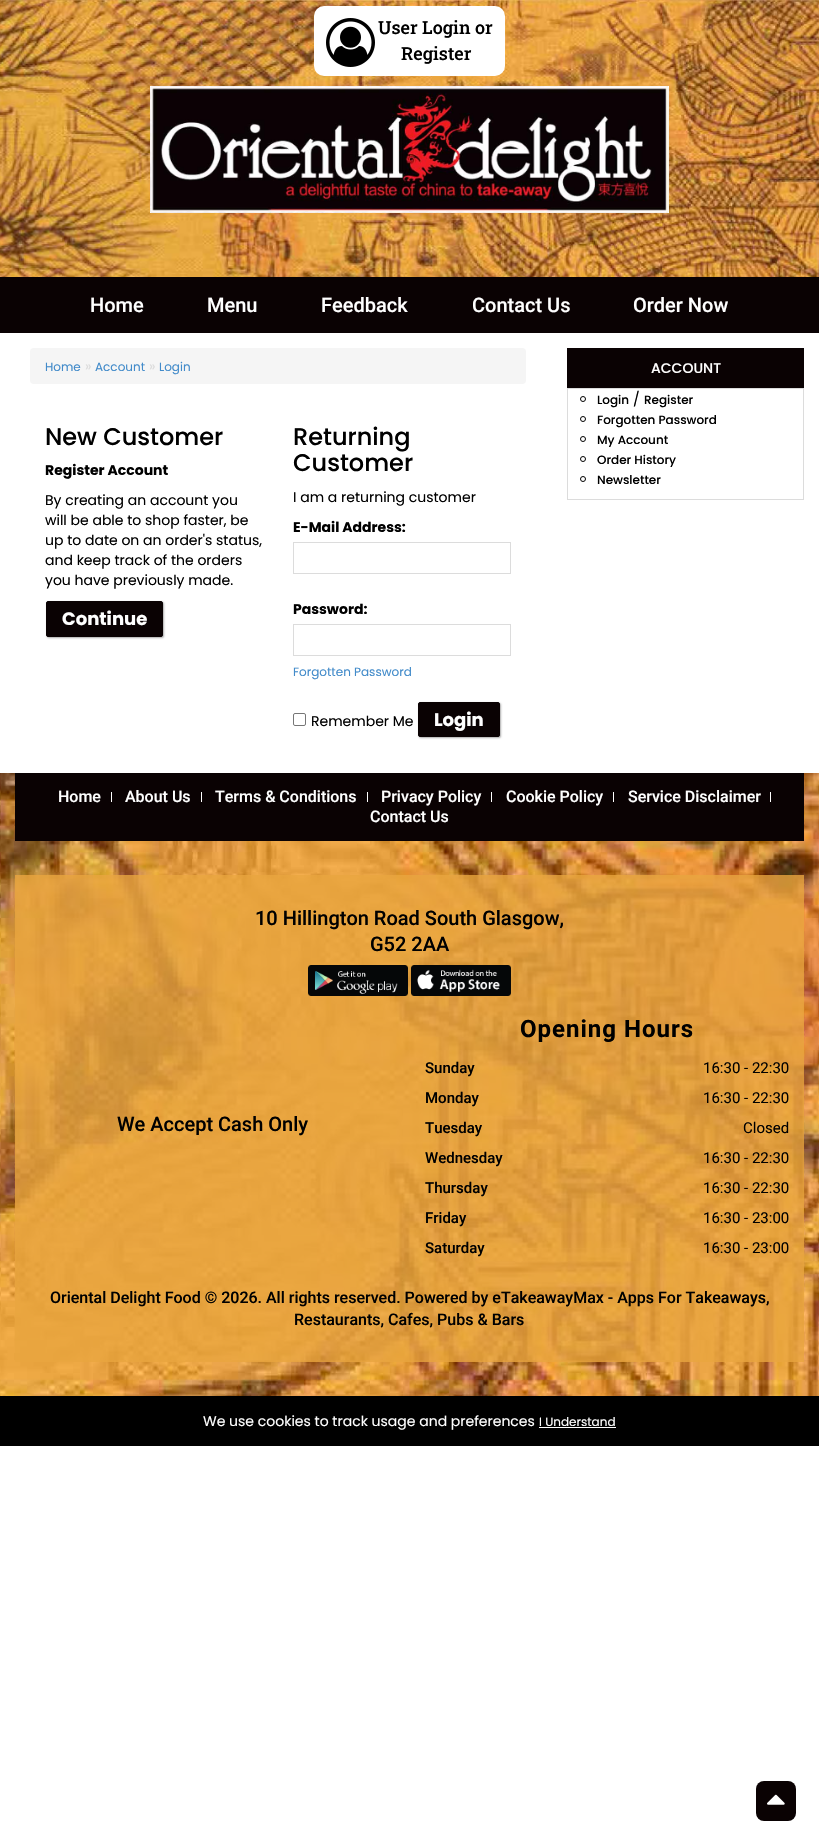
void draw(SkCanvas* canvas) {
    SkPaint paint;
    paint.setAntiAlias(true);
    auto spacedText = [&](const char* s, float x, float y, const SkFont& font, const SkPaint& ink, float letter, float word) {
        std::vector<SkGlyphID> glyphs(font.countText(s, strlen(s), SkTextEncoding::kUTF8));
        std::vector<float> xs(glyphs.size());
        font.textToGlyphs(s, strlen(s), SkTextEncoding::kUTF8, glyphs);
        font.getXPos(glyphs, xs, x);
        float extra = 0;
        for (size_t i = 0; i < glyphs.size(); i++) {
            xs[i] += extra;
            extra += letter + word * (glyphs[i] == font.unicharToGlyph(' '));
        }
        canvas->drawTextBlob(SkTextBlob::MakeFromPosHGlyphs(glyphs, xs, y, font), 0, 0, ink);
    };
    canvas->clear(0xFFFFFFFF);
    canvas->drawImageRect(SkImages::DeferredFromEncodedData(SkData::MakeFromFileName("img1.png")), SkRect::MakeXYWH(0, 0, 819, 277), SkSamplingOptions());
    paint.setColor(0xFFFFFFFF);
    canvas->drawRoundRect(SkRect::MakeXYWH(314, 6, 191, 70), 10, 10, paint);
    canvas->drawImageRect(SkImages::DeferredFromEncodedData(SkData::MakeFromFileName("img2.png")), SkRect::MakeXYWH(326, 18, 49, 49), SkSamplingOptions());
    SkFont font1(fontMgr->matchFamilyStyle("Roboto Slab", SkFontStyle(500, SkFontStyle::kNormal_Width, SkFontStyle::kUpright_Slant)), 18);
    font1.setSubpixel(true);
    paint.setColor(0xFF000000);
    canvas->drawString("User Login or", 378, 34, font1, paint);
    canvas->drawString("Register", 401, 60, font1, paint);
    canvas->drawImageRect(SkImages::DeferredFromEncodedData(SkData::MakeFromFileName("img3.png")), SkRect::MakeXYWH(150, 86, 519, 127), SkSamplingOptions());
    paint.setColor(0xFF0A0203);
    canvas->drawRect(SkRect::MakeXYWH(0, 277, 819, 56), paint);
    SkFont font2(fontMgr->matchFamilyStyle("Roboto", SkFontStyle(500, SkFontStyle::kNormal_Width, SkFontStyle::kUpright_Slant)), 20);
    font2.setSubpixel(true);
    paint.setColor(0xFFFFFFFF);
    canvas->drawString("Home", 90, 312, font2, paint);
    canvas->drawString("Menu", 207, 312, font2, paint);
    canvas->drawString("Feedback", 321, 312, font2, paint);
    canvas->drawString("Contact Us", 472, 312, font2, paint);
    canvas->drawString("Order Now", 633, 312, font2, paint);
    paint.setColor(0xFFF5F5F5);
    canvas->drawRoundRect(SkRect::MakeXYWH(30, 348, 496, 36), 4, 4, paint);
    SkFont font3(fontMgr->matchFamilyStyle("Poppins", SkFontStyle::Normal()), 12);
    font3.setSubpixel(true);
    paint.setColor(0xFF428BCA);
    canvas->drawString("Home", 45, 371, font3, paint);
    SkFont font4(fontMgr->matchFamilyStyle("Poppins", SkFontStyle::Normal()), 14);
    font4.setSubpixel(true);
    paint.setColor(0xFFDCDCDC);
    canvas->drawString("»", 85, 371, font4, paint);
    paint.setColor(0xFF428BCA);
    canvas->drawString("Account", 95, 371, font3, paint);
    paint.setColor(0xFFDCDCDC);
    canvas->drawString("»", 149, 371, font4, paint);
    paint.setColor(0xFF428BCA);
    canvas->drawString("Login", 159, 371, font3, paint);
    SkFont font5(fontMgr->matchFamilyStyle("Poppins", SkFontStyle(500, SkFontStyle::kNormal_Width, SkFontStyle::kUpright_Slant)), 24);
    font5.setSubpixel(true);
    paint.setColor(0xFF000000);
    canvas->drawString("New Customer", 45, 445, font5, paint);
    SkFont font6(fontMgr->matchFamilyStyle("Poppins", SkFontStyle::Bold()), 14);
    font6.setSubpixel(true);
    canvas->drawString("Register Account", 45, 475, font6, paint);
    canvas->drawString("By creating an account you", 45, 505, font4, paint);
    canvas->drawString("will be able to shop faster, be", 45, 525, font4, paint);
    canvas->drawString("up to date on an order's status,", 45, 545, font4, paint);
    canvas->drawString("and keep track of the orders", 45, 565, font4, paint);
    canvas->drawString("you have previously made.", 45, 585, font4, paint);
    paint.setColor(0x54000000);
    paint.setMaskFilter(SkMaskFilter::MakeBlur(kNormal_SkBlurStyle, 1));
    canvas->drawRoundRect(SkRect::MakeXYWH(47, 602, 117, 36), 2, 2, paint);
    paint.setMaskFilter(nullptr);
    paint.setColor(0xFF0A0203);
    canvas->drawRoundRect(SkRect::MakeXYWH(46.5f, 601.5f, 116, 35), 1.5f, 1.5f, paint);
    paint.setStyle(SkPaint::kStroke_Style);
    paint.setStrokeWidth(1);
    canvas->drawRoundRect(SkRect::MakeXYWH(46.5f, 601.5f, 116, 35), 1.5f, 1.5f, paint);
    SkFont font7(fontMgr->matchFamilyStyle("Poppins", SkFontStyle::Bold()), 18);
    font7.setSubpixel(true);
    paint.setStyle(SkPaint::kFill_Style);
    paint.setColor(0xFFFFFFFF);
    canvas->drawString("Continue", 62, 625, font7, paint);
    paint.setColor(0xFF000000);
    canvas->drawString("Returning", 293, 445, font5, paint);
    canvas->drawString("Customer", 293, 471, font5, paint);
    canvas->drawString("I am a returning customer", 293, 502, font4, paint);
    canvas->drawString("E-Mail Address:", 293, 532, font6, paint);
    paint.setStyle(SkPaint::kStroke_Style);
    paint.setColor(0xFFDCDCDC);
    canvas->drawRect(SkRect::MakeXYWH(293.5f, 542.5f, 217, 31), paint);
    paint.setStyle(SkPaint::kFill_Style);
    paint.setColor(0xFF000000);
    canvas->drawString("Password:", 293, 614, font6, paint);
    paint.setStyle(SkPaint::kStroke_Style);
    paint.setColor(0xFFDCDCDC);
    canvas->drawRect(SkRect::MakeXYWH(293.5f, 624.5f, 217, 31), paint);
    paint.setStyle(SkPaint::kFill_Style);
    paint.setColor(0xFF428BCA);
    canvas->drawString("Forgotten Password", 293, 676, font3, paint);
    paint.setStyle(SkPaint::kStroke_Style);
    paint.setColor(0xFF767676);
    canvas->drawRoundRect(SkRect::MakeXYWH(293.5f, 713.5f, 12, 12), 1.5f, 1.5f, paint);
    paint.setStyle(SkPaint::kFill_Style);
    paint.setColor(0xFF000000);
    canvas->drawString("Remember Me", 311, 726, font4, paint);
    paint.setColor(0x54000000);
    paint.setMaskFilter(SkMaskFilter::MakeBlur(kNormal_SkBlurStyle, 1));
    canvas->drawRoundRect(SkRect::MakeXYWH(419, 703, 82, 35), 2, 2, paint);
    paint.setMaskFilter(nullptr);
    paint.setColor(0xFF0A0203);
    canvas->drawRoundRect(SkRect::MakeXYWH(418.5f, 702.5f, 81, 34), 1.5f, 1.5f, paint);
    paint.setStyle(SkPaint::kStroke_Style);
    canvas->drawRoundRect(SkRect::MakeXYWH(418.5f, 702.5f, 81, 34), 1.5f, 1.5f, paint);
    paint.setStyle(SkPaint::kFill_Style);
    paint.setColor(0xFFFFFFFF);
    canvas->drawString("Login", 434, 726, font7, paint);
    paint.setColor(0xFF0A0203);
    canvas->drawRect(SkRect::MakeXYWH(567, 348, 237, 40), paint);
    SkFont font8(fontMgr->matchFamilyStyle("Poppins", SkFontStyle(500, SkFontStyle::kNormal_Width, SkFontStyle::kUpright_Slant)), 14);
    font8.setSubpixel(true);
    paint.setColor(0xFFFFFFFF);
    canvas->drawString("ACCOUNT", 651, 373, font8, paint);
    paint.setStyle(SkPaint::kStroke_Style);
    paint.setColor(0xFFDCDCDC);
    canvas->drawRect(SkRect::MakeXYWH(567.5f, 388.5f, 236, 111), paint);
    paint.setColor(0xFF000000);
    canvas->drawCircle(583, 399, 2.5f, paint);
    SkFont font9(fontMgr->matchFamilyStyle("Poppins", SkFontStyle(500, SkFontStyle::kNormal_Width, SkFontStyle::kUpright_Slant)), 12);
    font9.setSubpixel(true);
    paint.setStyle(SkPaint::kFill_Style);
    canvas->drawString("Login", 597, 404, font9, paint);
    canvas->drawString("/", 633, 404, font4, paint);
    canvas->drawString("Register", 644, 404, font9, paint);
    paint.setStyle(SkPaint::kStroke_Style);
    canvas->drawCircle(583, 419, 2.5f, paint);
    paint.setStyle(SkPaint::kFill_Style);
    canvas->drawString("Forgotten Password", 597, 424, font9, paint);
    paint.setStyle(SkPaint::kStroke_Style);
    canvas->drawCircle(583, 439, 2.5f, paint);
    paint.setStyle(SkPaint::kFill_Style);
    canvas->drawString("My Account", 597, 444, font9, paint);
    paint.setStyle(SkPaint::kStroke_Style);
    canvas->drawCircle(583, 459, 2.5f, paint);
    paint.setStyle(SkPaint::kFill_Style);
    canvas->drawString("Order History", 597, 464, font9, paint);
    paint.setStyle(SkPaint::kStroke_Style);
    canvas->drawCircle(583, 479, 2.5f, paint);
    paint.setStyle(SkPaint::kFill_Style);
    canvas->drawString("Newsletter", 597, 484, font9, paint);
    paint.setColor(0xFF0A0203);
    canvas->drawRoundRect(SkRect::MakeXYWH(756, 1781, 40, 40), 8, 8, paint);
    canvas->drawImageRect(SkImages::DeferredFromEncodedData(SkData::MakeFromFileName("img4.png")), SkRect::MakeXYWH(767, 1794, 18, 11), SkSamplingOptions());
    canvas->drawImageRect(SkImages::DeferredFromEncodedData(SkData::MakeFromFileName("img5.png")), SkRect::MakeXYWH(0, 773, 819, 623), SkSamplingOptions());
    canvas->drawRect(SkRect::MakeXYWH(15, 773, 789, 68), paint);
    paint.setColor(0xFFFFFFFF);
    canvas->drawRect(SkRect::MakeXYWH(111, 792, 1, 10), paint);
    SkFont font10(fontMgr->matchFamilyStyle("Roboto", SkFontStyle(500, SkFontStyle::kNormal_Width, SkFontStyle::kUpright_Slant)), 16);
    font10.setSubpixel(true);
    canvas->drawString("Home", 58, 802, font10, paint);
    canvas->drawRect(SkRect::MakeXYWH(201, 792, 1, 10), paint);
    canvas->drawString("About Us", 125, 802, font10, paint);
    canvas->drawRect(SkRect::MakeXYWH(367, 792, 1, 10), paint);
    canvas->drawString("Terms & Conditions", 215, 802, font10, paint);
    canvas->drawRect(SkRect::MakeXYWH(491, 792, 1, 10), paint);
    canvas->drawString("Privacy Policy", 381, 802, font10, paint);
    canvas->drawRect(SkRect::MakeXYWH(613, 792, 1, 10), paint);
    canvas->drawString("Cookie Policy", 506, 802, font10, paint);
    canvas->drawRect(SkRect::MakeXYWH(770, 792, 1, 10), paint);
    canvas->drawString("Service Disclaimer", 628, 802, font10, paint);
    canvas->drawString("Contact Us", 370, 822, font10, paint);
    paint.setColor(0xCCE9A53F);
    canvas->drawRect(SkRect::MakeXYWH(15, 875, 789, 487), paint);
    paint.setColor(0xFF000000);
    canvas->drawString("10 Hillington Road South Glasgow,", 255, 925, font2, paint);
    canvas->drawString("G52 2AA", 370, 951, font2, paint);
    canvas->drawImageRect(SkImages::DeferredFromEncodedData(SkData::MakeFromFileName("img6.png")), SkRect::MakeXYWH(308, 965, 100, 31), SkSamplingOptions());
    canvas->drawImageRect(SkImages::DeferredFromEncodedData(SkData::MakeFromFileName("img7.png")), SkRect::MakeXYWH(411, 965, 100, 31), SkSamplingOptions());
    canvas->drawString("We Accept Cash Only", 117, 1131, font2, paint);
    SkFont font11(fontMgr->matchFamilyStyle("Roboto", SkFontStyle::Bold()), 24);
    font11.setSubpixel(true);
    spacedText("Opening Hours", 520, 1037, font11, paint, 1, 0);
    SkFont font12(fontMgr->matchFamilyStyle("Roboto", SkFontStyle(500, SkFontStyle::kNormal_Width, SkFontStyle::kUpright_Slant)), 15);
    font12.setSubpixel(true);
    canvas->drawString("Sunday", 425, 1073, font12, paint);
    SkFont font13(fontMgr->matchFamilyStyle("Roboto", SkFontStyle::Normal()), 15);
    font13.setSubpixel(true);
    canvas->drawString("16:30 - 22:30", 703, 1073, font13, paint);
    canvas->drawString("Monday", 425, 1103, font12, paint);
    canvas->drawString("16:30 - 22:30", 703, 1103, font13, paint);
    canvas->drawString("Tuesday", 425, 1133, font12, paint);
    canvas->drawString("Closed", 743, 1133, font13, paint);
    canvas->drawString("Wednesday", 425, 1163, font12, paint);
    canvas->drawString("16:30 - 22:30", 703, 1163, font13, paint);
    canvas->drawString("Thursday", 425, 1193, font12, paint);
    canvas->drawString("16:30 - 22:30", 703, 1193, font13, paint);
    canvas->drawString("Friday", 425, 1223, font12, paint);
    canvas->drawString("16:30 - 23:00", 703, 1223, font13, paint);
    canvas->drawString("Saturday", 425, 1253, font12, paint);
    canvas->drawString("16:30 - 23:00", 703, 1253, font13, paint);
    canvas->drawString("Oriental Delight Food © 2026. All rights reserved. Powered by eTakeawayMax - Apps For Takeaways,", 50, 1303, font10, paint);
    canvas->drawString("Restaurants, Cafes, Pubs & Bars", 294, 1325, font10, paint);
    canvas->drawRect(SkRect::MakeXYWH(0, 1396, 819, 50), paint);
    paint.setColor(0xFFFFFFFF);
    canvas->drawString("We use cookies to track usage and preferences", 203, 1426, font4, paint);
    canvas->drawString("I Understand", 539, 1426, font3, paint);
    canvas->drawRect(SkRect::MakeXYWH(539, 1427, 77, 1), paint);
}
